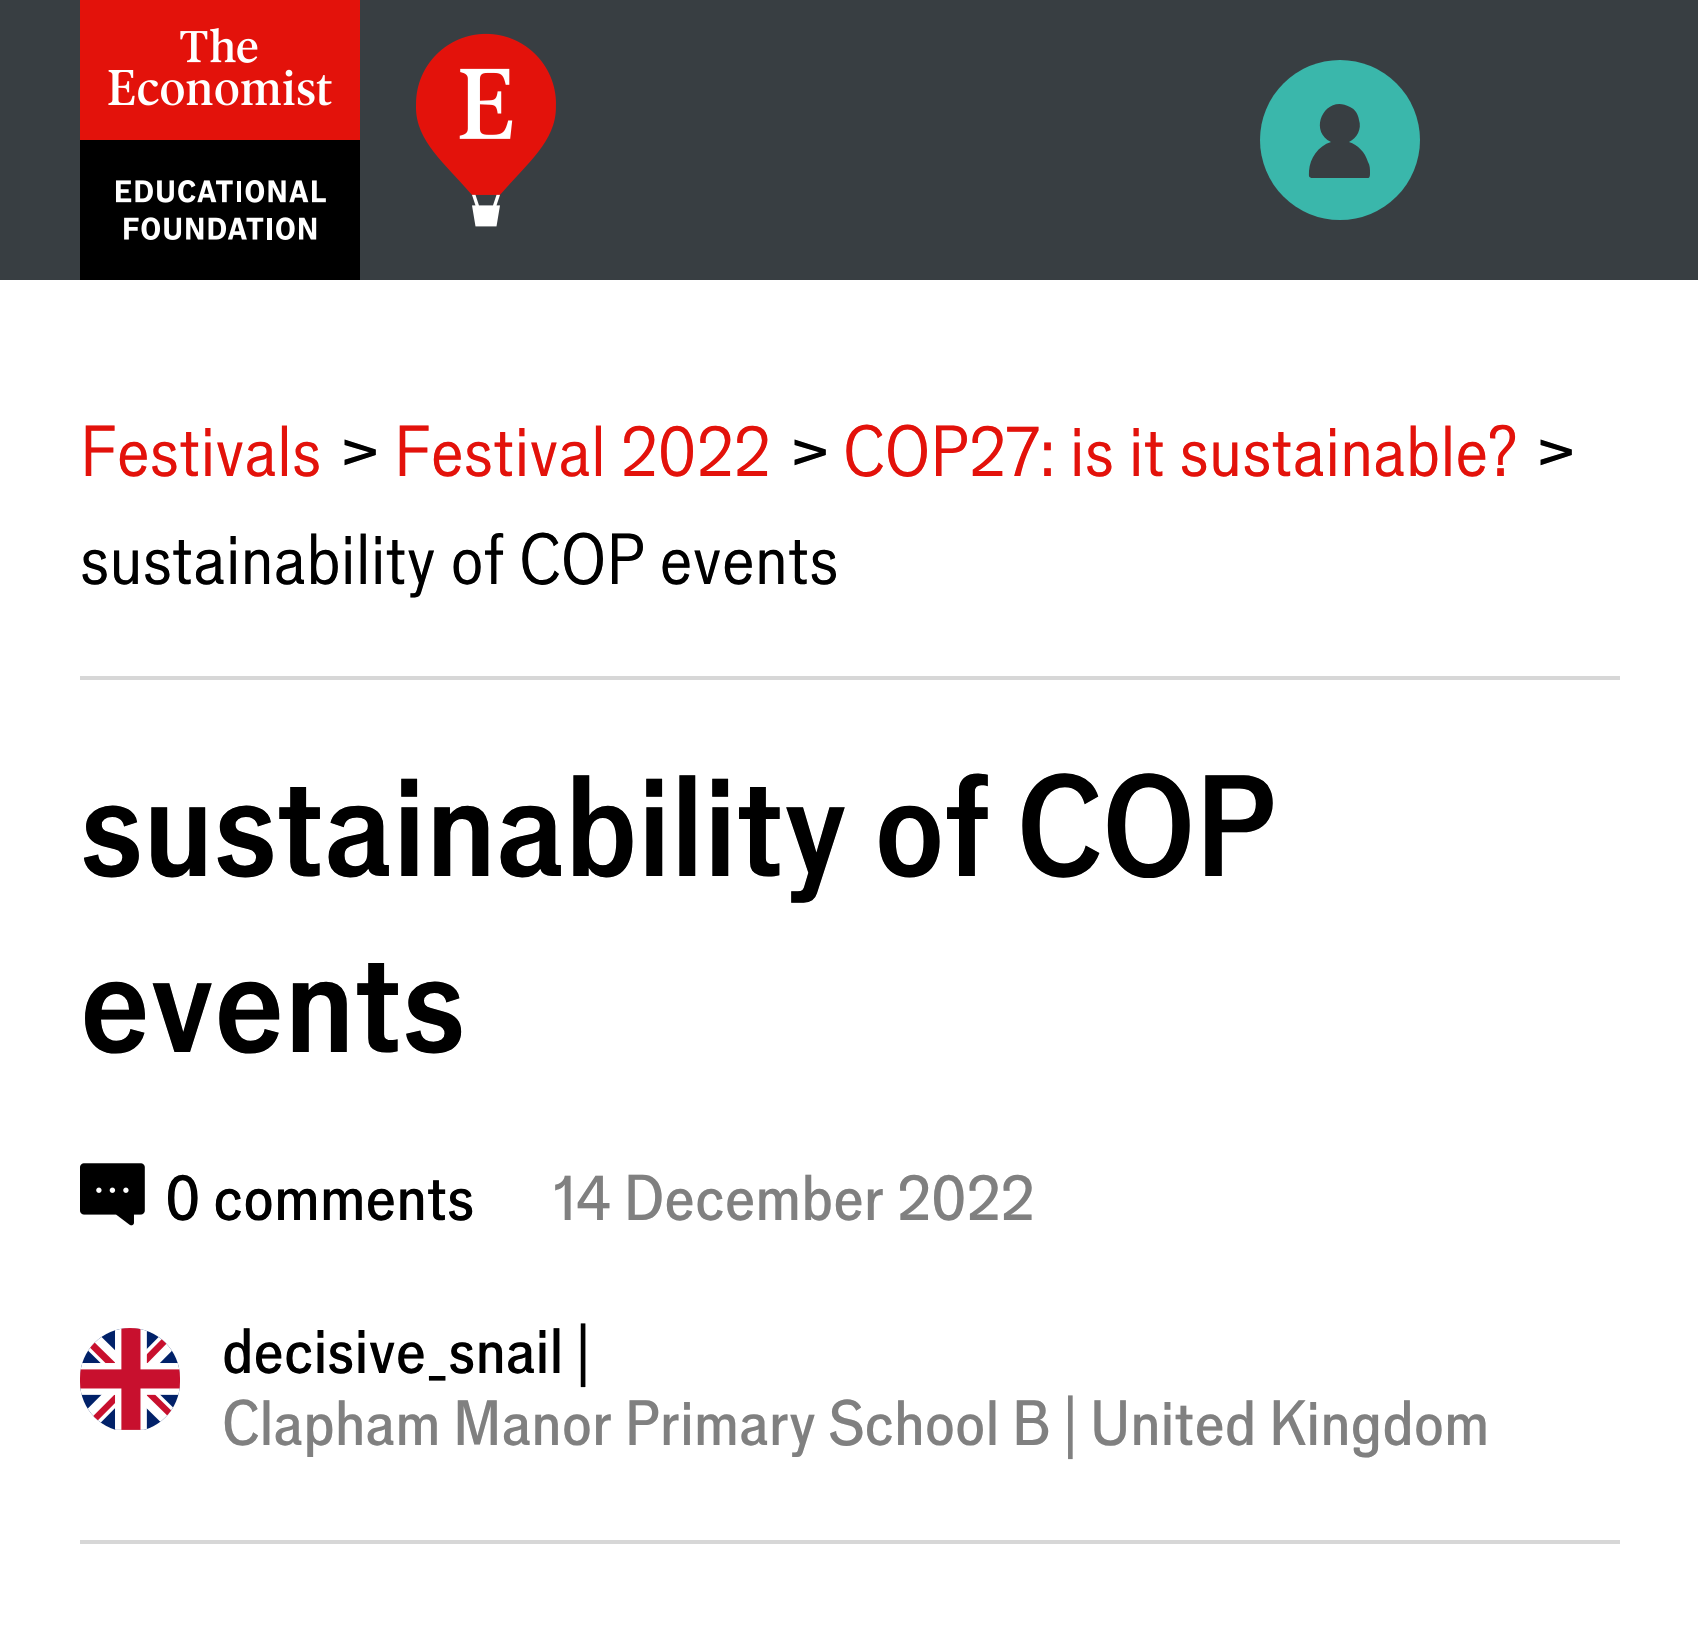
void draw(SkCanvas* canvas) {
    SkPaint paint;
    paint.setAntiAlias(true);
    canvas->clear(0xFFFFFFFF);
    paint.setColor(0xFF383E42);
    canvas->drawRect(SkRect::MakeXYWH(0, 0, 1698, 280), paint);
    canvas->drawImageRect(SkImages::DeferredFromEncodedData(SkData::MakeFromFileName("img1.png")), SkRect::MakeXYWH(80, 0, 280, 280), SkSamplingOptions());
    canvas->drawImageRect(SkImages::DeferredFromEncodedData(SkData::MakeFromFileName("img2.png")), SkRect::MakeXYWH(416, 33, 140, 194), SkSamplingOptions());
    paint.setColor(0xFF3AB7AB);
    canvas->drawCircle(1340, 140, 80, paint);
    paint.setColor(0xFF383E42);
    canvas->drawPath(SkPathBuilder().moveTo(1359, 120).cubicTo(1358, 114, 1355, 109, 1350, 107).cubicTo(1326, 93, 1307, 130, 1331, 142).cubicTo(1318, 146, 1310, 158, 1309, 171).cubicTo(1309, 176, 1308, 178, 1313, 178).lineTo(1363, 178).cubicTo(1369, 178, 1370, 179, 1370, 173).cubicTo(1370, 169, 1370, 165, 1368, 162).cubicTo(1365, 152, 1358, 145, 1349, 142).cubicTo(1357, 138, 1362, 129, 1359, 120).close().detach(), paint);
    paint.setColor(0xFFD7D7D7);
    canvas->drawRect(SkRect::MakeXYWH(80, 676, 1540, 4), paint);
    SkFont font1(fontMgr->matchFamilyStyle("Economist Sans", SkFontStyle(300, SkFontStyle::kNormal_Width, SkFontStyle::kUpright_Slant)), 72);
    font1.setSubpixel(true);
    paint.setColor(0xFFE3120B);
    canvas->drawString("Festivals", 80, 476, font1, paint);
    paint.setColor(0xFF000000);
    canvas->drawString(">", 341, 476, font1, paint);
    paint.setColor(0xFFE3120B);
    canvas->drawString("Festival 2022", 394, 476, font1, paint);
    paint.setColor(0xFF000000);
    canvas->drawString(">", 791, 476, font1, paint);
    paint.setColor(0xFFE3120B);
    canvas->drawString("COP27: is it sustainable?", 843, 476, font1, paint);
    paint.setColor(0xFF000000);
    canvas->drawString(">", 1537, 476, font1, paint);
    canvas->drawString("sustainability of COP events", 80, 584, font1, paint);
    SkFont font2(fontMgr->matchFamilyStyle("Economist Sans", SkFontStyle(500, SkFontStyle::kNormal_Width, SkFontStyle::kUpright_Slant)), 144);
    font2.setSubpixel(true);
    canvas->drawString("sustainability of COP", 80, 876, font2, paint);
    canvas->drawString("events", 80, 1052, font2, paint);
    canvas->drawImageRect(SkImages::DeferredFromEncodedData(SkData::MakeFromFileName("img3.png")), SkRect::MakeXYWH(80, 1163, 65, 63), SkSamplingOptions());
    SkFont font3(fontMgr->matchFamilyStyle("Economist Sans", SkFontStyle::Normal()), 64.75f);
    font3.setSubpixel(true);
    canvas->drawString("0 comments", 165, 1220, font3, paint);
    paint.setColor(0xFF808080);
    canvas->drawString("14 December 2022", 554, 1220, font3, paint);
    paint.setColor(0xFFD7D7D7);
    canvas->drawRect(SkRect::MakeXYWH(80, 1540, 1540, 4), paint);
    canvas->drawImageRect(SkImages::DeferredFromEncodedData(SkData::MakeFromFileName("img4.png")), SkRect::MakeXYWH(80, 1328, 100, 102), SkSamplingOptions());
    SkFont font4(fontMgr->matchFamilyStyle("Economist Sans", SkFontStyle::Normal()), 64);
    font4.setSubpixel(true);
    paint.setColor(0xFF000000);
    canvas->drawString("decisive_snail |", 222, 1373, font4, paint);
    paint.setColor(0xFF808080);
    canvas->drawString("Clapham Manor Primary School B | United Kingdom", 222, 1445, font4, paint);
}
